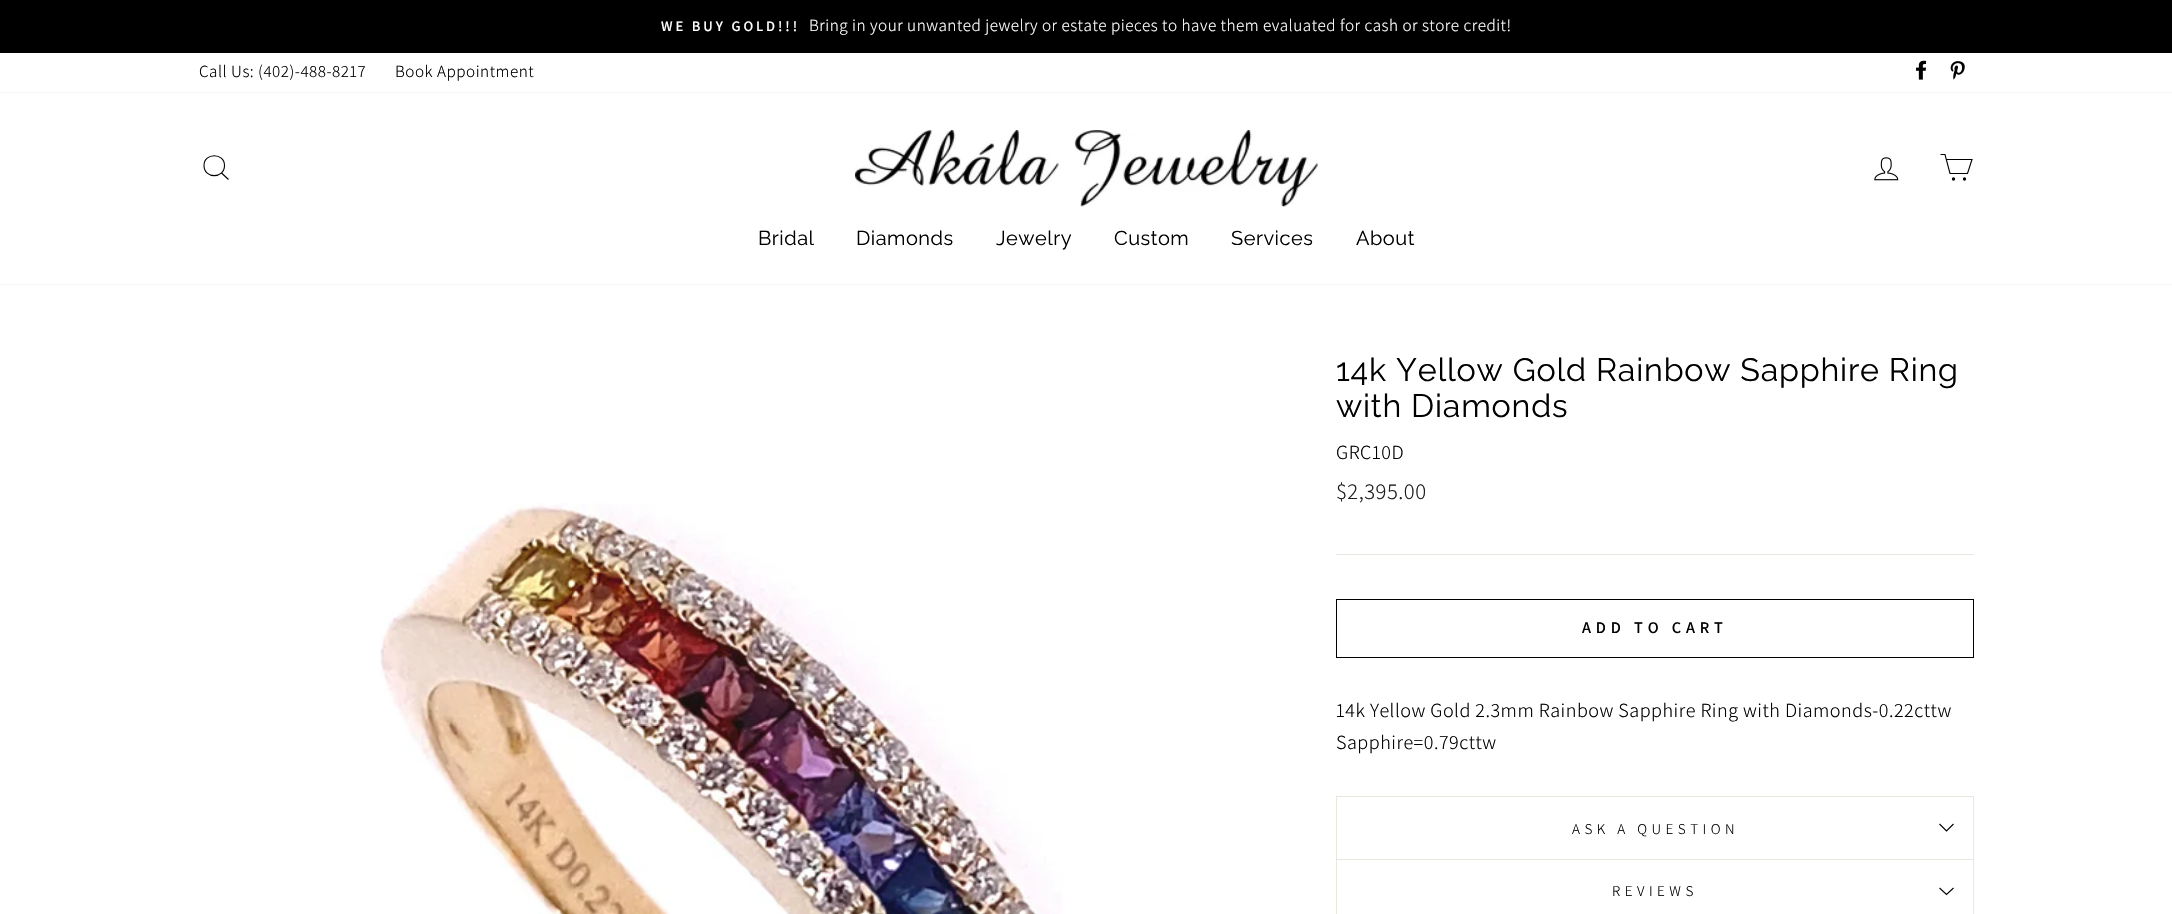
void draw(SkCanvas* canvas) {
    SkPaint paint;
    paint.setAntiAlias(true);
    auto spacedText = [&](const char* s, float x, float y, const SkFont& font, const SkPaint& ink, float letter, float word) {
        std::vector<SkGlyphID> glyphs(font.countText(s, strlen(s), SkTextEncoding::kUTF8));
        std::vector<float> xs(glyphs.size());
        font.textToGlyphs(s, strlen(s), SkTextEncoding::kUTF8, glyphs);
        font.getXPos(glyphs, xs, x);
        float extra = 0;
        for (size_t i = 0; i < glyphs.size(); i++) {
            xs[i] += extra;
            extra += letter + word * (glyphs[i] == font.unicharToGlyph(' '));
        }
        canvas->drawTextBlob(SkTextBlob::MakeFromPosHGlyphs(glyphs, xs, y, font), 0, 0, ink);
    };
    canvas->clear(0xFFFFFFFF);
    paint.setColor(0xFF000000);
    canvas->drawRect(SkRect::MakeXYWH(0, 0, 2172, 53), paint);
    SkFont font1(fontMgr->matchFamilyStyle("Assistant", SkFontStyle(600, SkFontStyle::kNormal_Width, SkFontStyle::kUpright_Slant)), 14.5f);
    font1.setSubpixel(true);
    paint.setColor(0xFFFFFFFF);
    spacedText("WE BUY GOLD!!!", 661, 31, font1, paint, 2.9f, 0);
    SkFont font2(fontMgr->matchFamilyStyle("Assistant", SkFontStyle(300, SkFontStyle::kNormal_Width, SkFontStyle::kUpright_Slant)), 17);
    font2.setSubpixel(true);
    spacedText("Bring in your unwanted jewelry or estate pieces to have them evaluated for cash or store credit!", 809, 31, font2, paint, 0.5f, 0);
    paint.setColor(0xFF000000);
    spacedText("Call Us: (402)-488-8217", 199, 77, font2, paint, 0.5f, 0);
    spacedText("Book Appointment", 395, 77, font2, paint, 0.5f, 0);
    canvas->drawImageRect(SkImages::DeferredFromEncodedData(SkData::MakeFromFileName("img1.png")), SkRect::MakeXYWH(1916, 60, 11, 20), SkSamplingOptions());
    canvas->drawImageRect(SkImages::DeferredFromEncodedData(SkData::MakeFromFileName("img2.png")), SkRect::MakeXYWH(1950, 61, 15, 19), SkSamplingOptions());
    paint.setColor(0x33000000);
    paint.setMaskFilter(SkMaskFilter::MakeBlur(kNormal_SkBlurStyle, 0.5f));
    canvas->drawRect(SkRect::MakeXYWH(0, 93, 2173, 191), paint);
    paint.setMaskFilter(nullptr);
    paint.setColor(0xFFFFFFFF);
    canvas->drawRect(SkRect::MakeXYWH(0, 93, 2172, 191), paint);
    paint.setStyle(SkPaint::kStroke_Style);
    paint.setStrokeWidth(1.1f);
    paint.setColor(0xFF000000);
    canvas->drawPath(SkPathBuilder().moveTo(224.5f, 165.5f).cubicTo(224.5f, 179, 204, 179, 204, 165.5f).cubicTo(204, 152.5f, 224.5f, 152.5f, 224.5f, 165.5f).close().moveTo(228.5f, 179.5f).lineTo(221.5f, 173).detach(), paint);
    canvas->drawImageRect(SkImages::DeferredFromEncodedData(SkData::MakeFromFileName("img3.png")), SkRect::MakeXYWH(855, 130, 463, 77), SkSamplingOptions());
    canvas->drawImageRect(SkImages::DeferredFromEncodedData(SkData::MakeFromFileName("img4.png")), SkRect::MakeXYWH(1874, 157, 25, 24), SkSamplingOptions());
    canvas->drawPath(SkPathBuilder().moveTo(1946.5f, 159.5f).lineTo(1972, 159.5f).lineTo(1967.5f, 173.5f).lineTo(1950, 173.5f).lineTo(1945, 154.5f).lineTo(1940.5f, 154.5f).detach(), paint);
    paint.setStyle(SkPaint::kFill_Style);
    canvas->drawCircle(1953.5f, 179, 1.1f, paint);
    paint.setStyle(SkPaint::kStroke_Style);
    canvas->drawCircle(1953.5f, 179, 1.1f, paint);
    paint.setStyle(SkPaint::kFill_Style);
    canvas->drawCircle(1964.5f, 179, 1.1f, paint);
    paint.setStyle(SkPaint::kStroke_Style);
    canvas->drawCircle(1964.5f, 179, 1.1f, paint);
    SkFont font3(fontMgr->matchFamilyStyle("Raleway", SkFontStyle::Normal()), 20);
    font3.setSubpixel(true);
    paint.setStyle(SkPaint::kFill_Style);
    spacedText("Bridal", 758, 245, font3, paint, 0.5f, 0);
    spacedText("Diamonds", 856, 245, font3, paint, 0.5f, 0);
    spacedText("Jewelry", 996, 245, font3, paint, 0.5f, 0);
    spacedText("Custom", 1114, 245, font3, paint, 0.5f, 0);
    spacedText("Services", 1231, 245, font3, paint, 0.5f, 0);
    spacedText("About", 1356, 245, font3, paint, 0.5f, 0);
    canvas->drawImageRect(SkImages::DeferredFromEncodedData(SkData::MakeFromFileName("img5.png")), SkRect::MakeXYWH(380, 503, 683, 411), SkSamplingOptions());
    SkFont font4(fontMgr->matchFamilyStyle("Raleway", SkFontStyle::Normal()), 32.25f);
    font4.setSubpixel(true);
    spacedText("14k Yellow Gold Rainbow Sapphire Ring", 1336, 381, font4, paint, 0.8f, 0);
    spacedText("with Diamonds", 1336, 417, font4, paint, 0.8f, 0);
    SkFont font5(fontMgr->matchFamilyStyle("Assistant", SkFontStyle(300, SkFontStyle::kNormal_Width, SkFontStyle::kUpright_Slant)), 20);
    font5.setSubpixel(true);
    spacedText("GRC10D", 1336, 459, font5, paint, 0.5f, 0);
    SkFont font6(fontMgr->matchFamilyStyle("Assistant", SkFontStyle(300, SkFontStyle::kNormal_Width, SkFontStyle::kUpright_Slant)), 22.5f);
    font6.setSubpixel(true);
    paint.setColor(0xFF1C1D1D);
    spacedText("$2,395.00", 1336, 499, font6, paint, 0.5f, 0);
    paint.setColor(0xFFE8E8E1);
    canvas->drawRect(SkRect::MakeXYWH(1336, 554, 638, 1), paint);
    paint.setStyle(SkPaint::kStroke_Style);
    paint.setStrokeWidth(1);
    paint.setColor(0xFF000000);
    canvas->drawRect(SkRect::MakeXYWH(1336.5f, 599.5f, 637, 58), paint);
    SkFont font7(fontMgr->matchFamilyStyle("Assistant", SkFontStyle(600, SkFontStyle::kNormal_Width, SkFontStyle::kUpright_Slant)), 16.25f);
    font7.setSubpixel(true);
    paint.setStyle(SkPaint::kFill_Style);
    spacedText("ADD TO CART", 1582, 633, font7, paint, 4.9f, 0);
    spacedText("14k Yellow Gold 2.3mm Rainbow Sapphire Ring with Diamonds-0.22cttw", 1336, 717, font5, paint, 0.5f, 0);
    spacedText("Sapphire=0.79cttw", 1336, 749, font5, paint, 0.5f, 0);
    paint.setColor(0xFFE8E8E1);
    canvas->drawRect(SkRect::MakeXYWH(1336, 796, 638, 1), paint);
    canvas->drawRect(SkRect::MakeXYWH(1973, 796, 1, 63), paint);
    canvas->drawRect(SkRect::MakeXYWH(1336, 796, 1, 63), paint);
    SkFont font8(fontMgr->matchFamilyStyle("Assistant", SkFontStyle(300, SkFontStyle::kNormal_Width, SkFontStyle::kUpright_Slant)), 15);
    font8.setSubpixel(true);
    paint.setColor(0xFF000000);
    spacedText("ASK A QUESTION", 1572, 834, font8, paint, 4.5f, 0);
    paint.setStyle(SkPaint::kStroke_Style);
    paint.setStrokeWidth(1.1f);
    canvas->drawPath(SkPathBuilder().moveTo(1939.5f, 824).lineTo(1946.5f, 831).lineTo(1953.5f, 824).detach(), paint);
    paint.setStyle(SkPaint::kFill_Style);
    paint.setColor(0xFFE8E8E1);
    canvas->drawRect(SkRect::MakeXYWH(1336, 859, 638, 1), paint);
    canvas->drawRect(SkRect::MakeXYWH(1973, 859, 1, 55), paint);
    canvas->drawRect(SkRect::MakeXYWH(1336, 859, 1, 55), paint);
    paint.setColor(0xFF000000);
    spacedText("REVIEWS", 1612, 896, font8, paint, 4.5f, 0);
    paint.setStyle(SkPaint::kStroke_Style);
    canvas->drawPath(SkPathBuilder().moveTo(1939.5f, 888).lineTo(1946.5f, 894.5f).lineTo(1953.5f, 888).detach(), paint);
}
